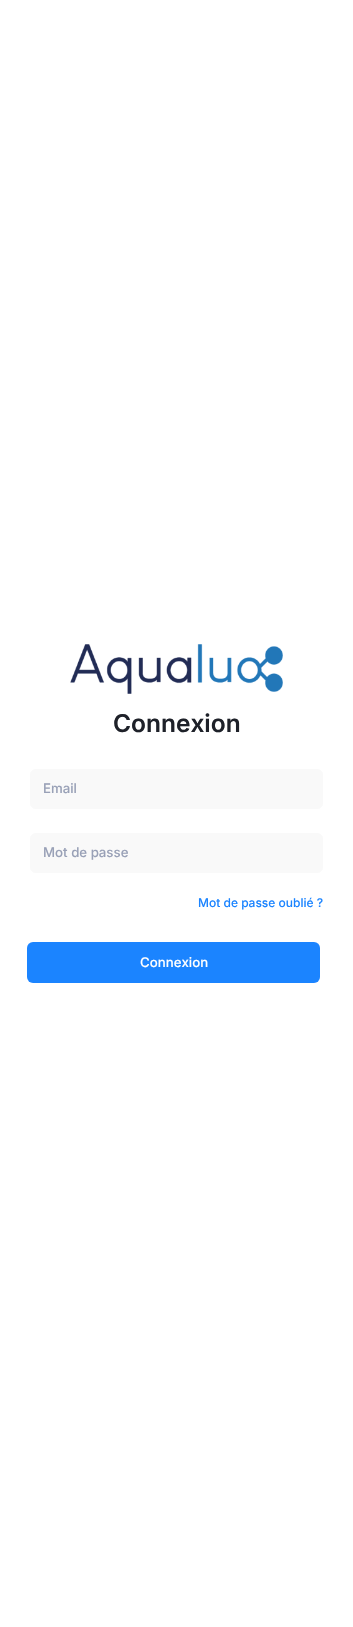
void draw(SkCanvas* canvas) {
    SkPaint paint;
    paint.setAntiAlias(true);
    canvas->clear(0xFFFFFFFF);
    canvas->drawImageRect(SkImages::DeferredFromEncodedData(SkData::MakeFromFileName("img1.png")), SkRect::MakeXYWH(70, 644, 213, 50), SkSamplingOptions());
    SkFont font1(fontMgr->matchFamilyStyle("Inter", SkFontStyle(600, SkFontStyle::kNormal_Width, SkFontStyle::kUpright_Slant)), 24.5f);
    font1.setSubpixel(true);
    paint.setColor(0xFF1E2129);
    canvas->drawString("Connexion", 113, 732, font1, paint);
    paint.setColor(0xFFF9F9F9);
    canvas->drawRoundRect(SkRect::MakeXYWH(30.5f, 769.5f, 292, 39), 5.5f, 5.5f, paint);
    paint.setStyle(SkPaint::kStroke_Style);
    paint.setStrokeWidth(1);
    canvas->drawRoundRect(SkRect::MakeXYWH(30.5f, 769.5f, 292, 39), 5.5f, 5.5f, paint);
    SkFont font2(fontMgr->matchFamilyStyle("Inter", SkFontStyle(500, SkFontStyle::kNormal_Width, SkFontStyle::kUpright_Slant)), 13.25f);
    font2.setSubpixel(true);
    paint.setStyle(SkPaint::kFill_Style);
    paint.setColor(0xFF99A1B7);
    canvas->drawString("Email", 43, 793, font2, paint);
    paint.setColor(0xFFF9F9F9);
    canvas->drawRoundRect(SkRect::MakeXYWH(30.5f, 833.5f, 292, 39), 5.5f, 5.5f, paint);
    paint.setStyle(SkPaint::kStroke_Style);
    canvas->drawRoundRect(SkRect::MakeXYWH(30.5f, 833.5f, 292, 39), 5.5f, 5.5f, paint);
    paint.setStyle(SkPaint::kFill_Style);
    paint.setColor(0xFF99A1B7);
    canvas->drawString("Mot de passe", 43, 857, font2, paint);
    SkFont font3(fontMgr->matchFamilyStyle("Inter", SkFontStyle(500, SkFontStyle::kNormal_Width, SkFontStyle::kUpright_Slant)), 12);
    font3.setSubpixel(true);
    paint.setColor(0xFF1B84FF);
    canvas->drawString("Mot de passe oublié ?", 198, 907, font3, paint);
    canvas->drawRoundRect(SkRect::MakeXYWH(27, 942, 293, 41), 6, 6, paint);
    paint.setColor(0xFFFFFFFF);
    canvas->drawString("Connexion", 140, 967, font2, paint);
}
